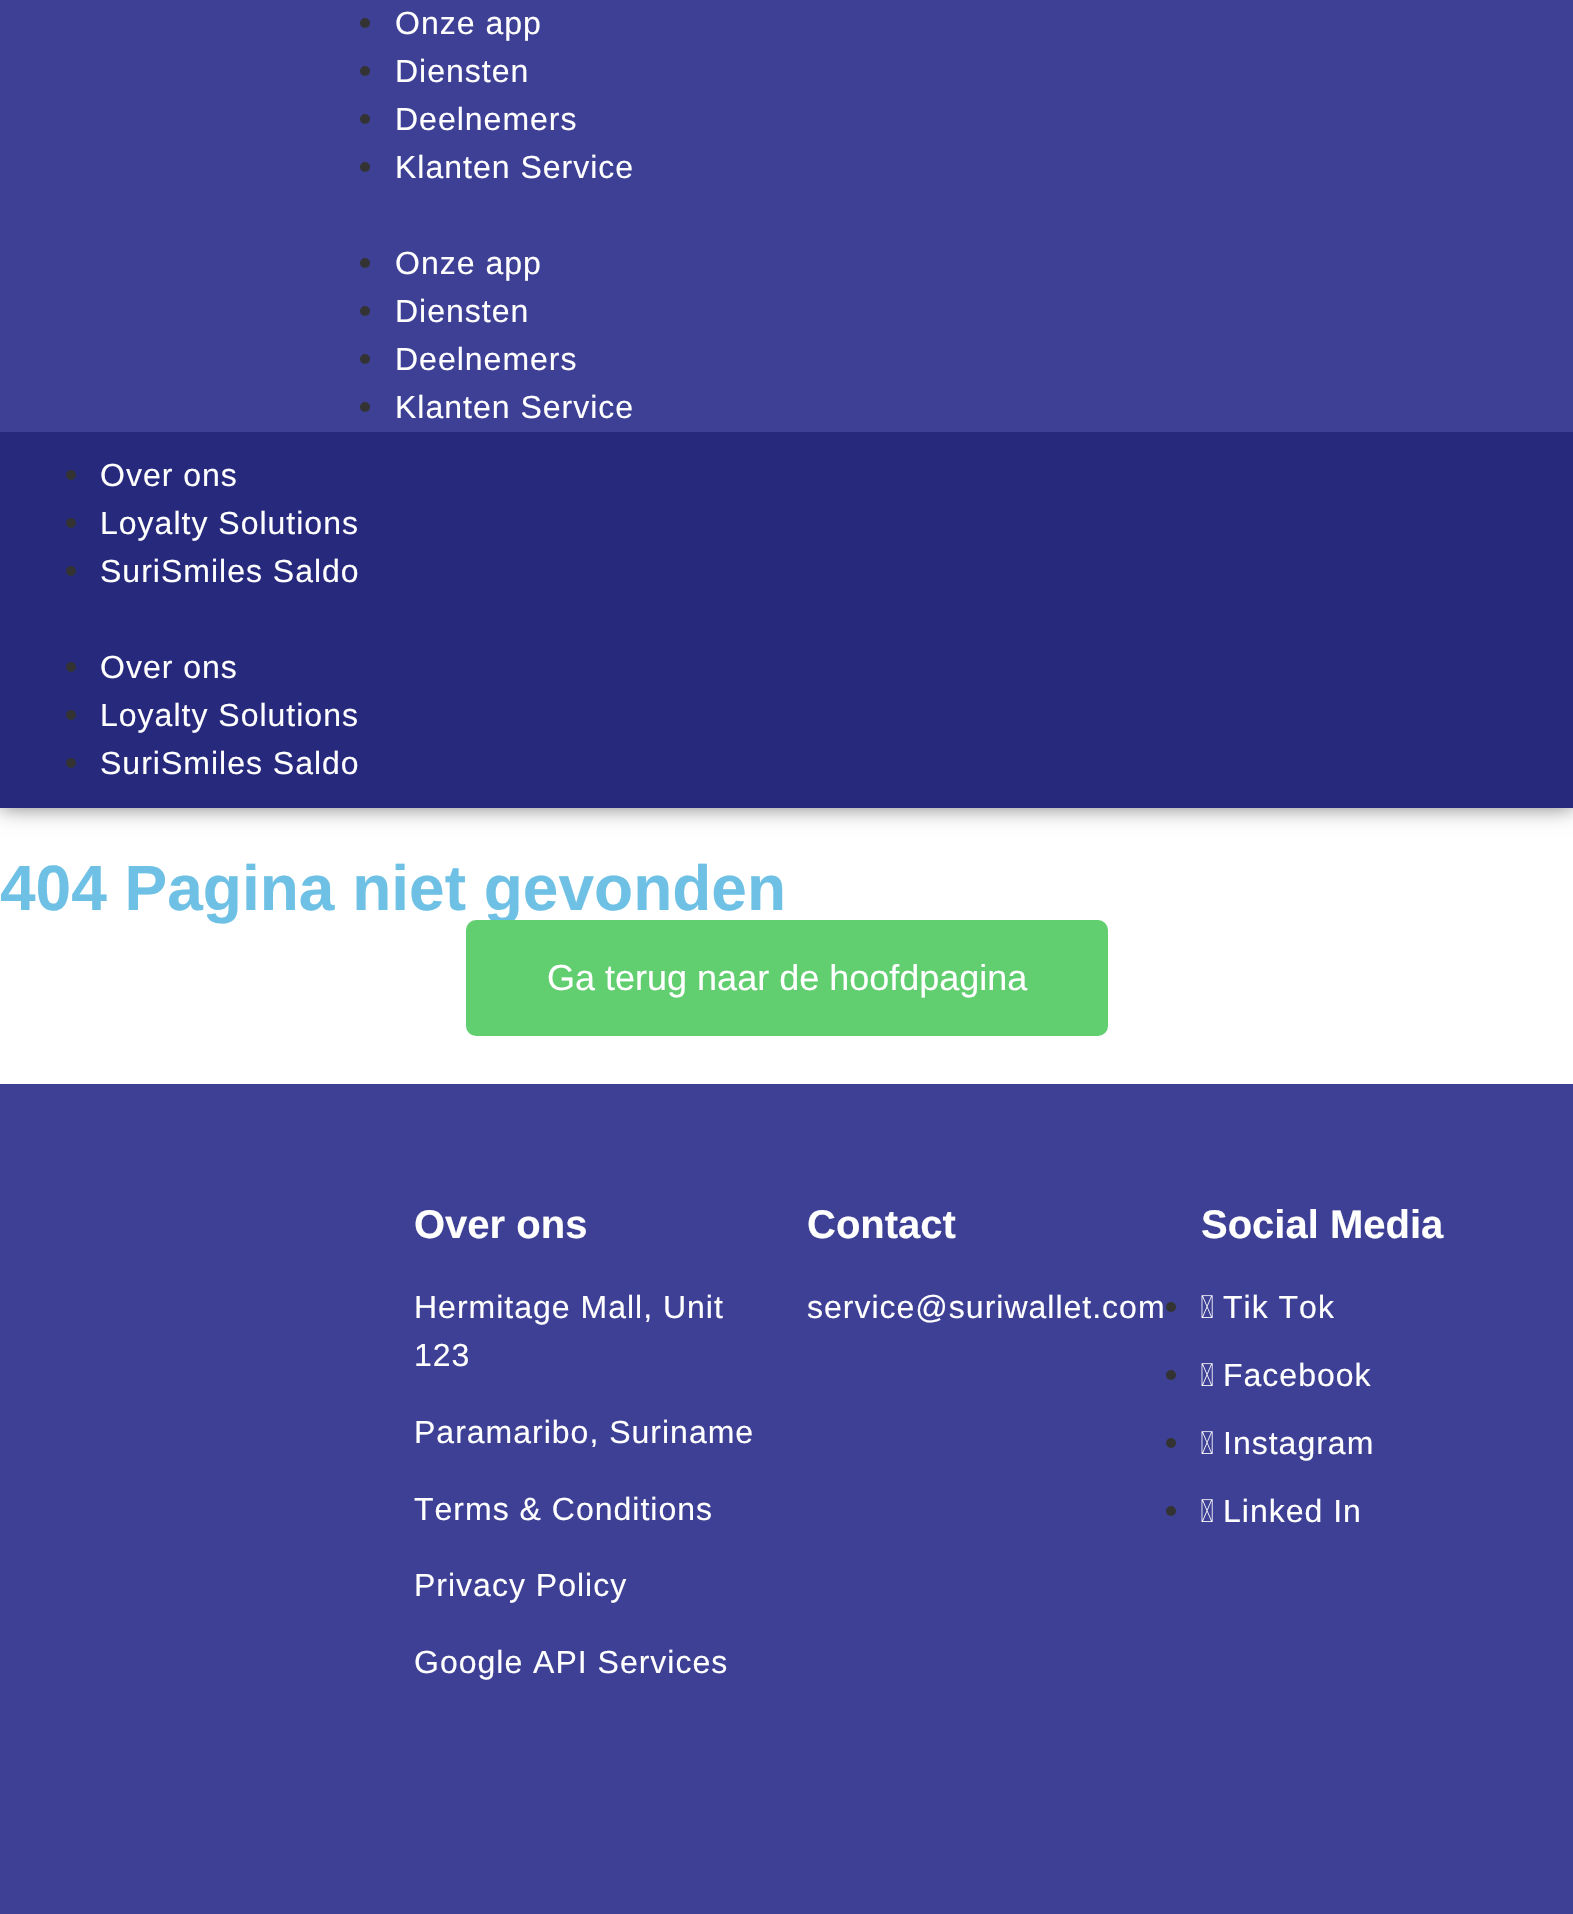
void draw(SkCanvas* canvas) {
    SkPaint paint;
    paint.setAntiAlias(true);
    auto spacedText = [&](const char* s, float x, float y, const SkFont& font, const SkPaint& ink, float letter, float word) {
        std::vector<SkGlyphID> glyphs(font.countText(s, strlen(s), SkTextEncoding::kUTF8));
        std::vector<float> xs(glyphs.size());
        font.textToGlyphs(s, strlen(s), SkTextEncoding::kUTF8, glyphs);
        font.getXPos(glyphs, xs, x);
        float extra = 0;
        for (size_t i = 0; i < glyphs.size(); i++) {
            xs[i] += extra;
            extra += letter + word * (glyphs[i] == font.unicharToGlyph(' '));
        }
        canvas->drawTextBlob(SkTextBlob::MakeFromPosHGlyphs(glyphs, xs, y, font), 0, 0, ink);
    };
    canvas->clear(0xFFFFFFFF);
    paint.setColor(0x80000000);
    paint.setMaskFilter(SkMaskFilter::MakeBlur(kNormal_SkBlurStyle, 10));
    canvas->drawRect(SkRect::MakeXYWH(0, 432, 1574, 376), paint);
    paint.setMaskFilter(nullptr);
    paint.setColor(0xFF3E4095);
    canvas->drawRect(SkRect::MakeXYWH(0, 0, 1573, 432), paint);
    paint.setColor(0xFF333333);
    canvas->drawCircle(365, 23, 5, paint);
    SkFont font1(fontMgr->matchFamilyStyle("Liberation Sans", SkFontStyle::Normal()), 32);
    font1.setSubpixel(true);
    paint.setColor(0xFFFFFFFF);
    spacedText("Onze app", 395, 34, font1, paint, 1, 0);
    paint.setColor(0xFF333333);
    canvas->drawCircle(365, 71, 5, paint);
    paint.setColor(0xFFFFFFFF);
    spacedText("Diensten", 395, 82, font1, paint, 1, 0);
    paint.setColor(0xFF333333);
    canvas->drawCircle(365, 119, 5, paint);
    paint.setColor(0xFFFFFFFF);
    spacedText("Deelnemers", 395, 130, font1, paint, 1, 0);
    paint.setColor(0xFF333333);
    canvas->drawCircle(365, 167, 5, paint);
    paint.setColor(0xFFFFFFFF);
    spacedText("Klanten Service", 395, 178, font1, paint, 1, 0);
    paint.setColor(0xFF333333);
    canvas->drawCircle(365, 263, 5, paint);
    paint.setColor(0xFFFFFFFF);
    spacedText("Onze app", 395, 274, font1, paint, 1, 0);
    paint.setColor(0xFF333333);
    canvas->drawCircle(365, 311, 5, paint);
    paint.setColor(0xFFFFFFFF);
    spacedText("Diensten", 395, 322, font1, paint, 1, 0);
    paint.setColor(0xFF333333);
    canvas->drawCircle(365, 359, 5, paint);
    paint.setColor(0xFFFFFFFF);
    spacedText("Deelnemers", 395, 370, font1, paint, 1, 0);
    paint.setColor(0xFF333333);
    canvas->drawCircle(365, 407, 5, paint);
    paint.setColor(0xFFFFFFFF);
    spacedText("Klanten Service", 395, 418, font1, paint, 1, 0);
    paint.setColor(0xFF27297D);
    canvas->drawRect(SkRect::MakeXYWH(0, 432, 1573, 376), paint);
    paint.setColor(0xFF333333);
    canvas->drawCircle(71, 475, 5, paint);
    paint.setColor(0xFFFFFFFF);
    spacedText("Over ons", 100, 486, font1, paint, 1, 0);
    paint.setColor(0xFF333333);
    canvas->drawCircle(71, 523, 5, paint);
    paint.setColor(0xFFFFFFFF);
    spacedText("Loyalty Solutions", 100, 534, font1, paint, 1, 0);
    paint.setColor(0xFF333333);
    canvas->drawCircle(71, 571, 5, paint);
    paint.setColor(0xFFFFFFFF);
    spacedText("SuriSmiles Saldo", 100, 582, font1, paint, 1, 0);
    paint.setColor(0xFF333333);
    canvas->drawCircle(71, 667, 5, paint);
    paint.setColor(0xFFFFFFFF);
    spacedText("Over ons", 100, 678, font1, paint, 1, 0);
    paint.setColor(0xFF333333);
    canvas->drawCircle(71, 715, 5, paint);
    paint.setColor(0xFFFFFFFF);
    spacedText("Loyalty Solutions", 100, 726, font1, paint, 1, 0);
    paint.setColor(0xFF333333);
    canvas->drawCircle(71, 763, 5, paint);
    paint.setColor(0xFFFFFFFF);
    spacedText("SuriSmiles Saldo", 100, 774, font1, paint, 1, 0);
    SkFont font2(fontMgr->matchFamilyStyle("Liberation Sans", SkFontStyle::Bold()), 64);
    font2.setSubpixel(true);
    paint.setColor(0xFF6EC1E4);
    canvas->drawString("404 Pagina niet gevonden", 0, 910, font2, paint);
    paint.setColor(0xFF61CE70);
    canvas->drawRoundRect(SkRect::MakeXYWH(466, 920, 642, 116), 10, 10, paint);
    SkFont font3(fontMgr->matchFamilyStyle("Liberation Sans", SkFontStyle::Normal()), 36);
    font3.setSubpixel(true);
    paint.setColor(0xFFFFFFFF);
    canvas->drawString("Ga terug naar de hoofdpagina", 547, 990, font3, paint);
    paint.setColor(0xFF3E4095);
    canvas->drawRect(SkRect::MakeXYWH(0, 1084, 1573, 830), paint);
    SkFont font4(fontMgr->matchFamilyStyle("Liberation Sans", SkFontStyle::Bold()), 40);
    font4.setSubpixel(true);
    paint.setColor(0xFFFFFFFF);
    canvas->drawString("Over ons", 414, 1238, font4, paint);
    spacedText("Hermitage Mall, Unit", 414, 1318, font1, paint, 1, 0);
    spacedText("123", 414, 1366, font1, paint, 1, 0);
    spacedText("Paramaribo, Suriname", 414, 1443, font1, paint, 1, 0);
    spacedText("Terms & Conditions", 414, 1520, font1, paint, 1, 0);
    spacedText("Privacy Policy", 414, 1596, font1, paint, 1, 0);
    spacedText("Google API Services", 414, 1673, font1, paint, 1, 0);
    canvas->drawString("Contact", 807, 1238, font4, paint);
    spacedText("service@suriwallet.com", 807, 1318, font1, paint, 1, 0);
    canvas->drawString("Social Media", 1201, 1238, font4, paint);
    paint.setColor(0xFF333333);
    canvas->drawCircle(1171, 1307, 5, paint);
    canvas->drawImageRect(SkImages::DeferredFromEncodedData(SkData::MakeFromFileName("img1.png")), SkRect::MakeXYWH(1201, 1295, 12, 23), SkSamplingOptions());
    paint.setColor(0xFFFFFFFF);
    spacedText("Tik Tok", 1223, 1318, font1, paint, 1, 0);
    paint.setColor(0xFF333333);
    canvas->drawCircle(1171, 1375, 5, paint);
    canvas->drawImageRect(SkImages::DeferredFromEncodedData(SkData::MakeFromFileName("img1.png")), SkRect::MakeXYWH(1201, 1363, 12, 23), SkSamplingOptions());
    paint.setColor(0xFFFFFFFF);
    spacedText("Facebook", 1223, 1386, font1, paint, 1, 0);
    paint.setColor(0xFF333333);
    canvas->drawCircle(1171, 1443, 5, paint);
    canvas->drawImageRect(SkImages::DeferredFromEncodedData(SkData::MakeFromFileName("img1.png")), SkRect::MakeXYWH(1201, 1431, 12, 23), SkSamplingOptions());
    paint.setColor(0xFFFFFFFF);
    spacedText("Instagram", 1223, 1454, font1, paint, 1, 0);
    paint.setColor(0xFF333333);
    canvas->drawCircle(1171, 1511, 5, paint);
    canvas->drawImageRect(SkImages::DeferredFromEncodedData(SkData::MakeFromFileName("img1.png")), SkRect::MakeXYWH(1201, 1499, 12, 23), SkSamplingOptions());
    paint.setColor(0xFFFFFFFF);
    spacedText("Linked In", 1223, 1522, font1, paint, 1, 0);
}
